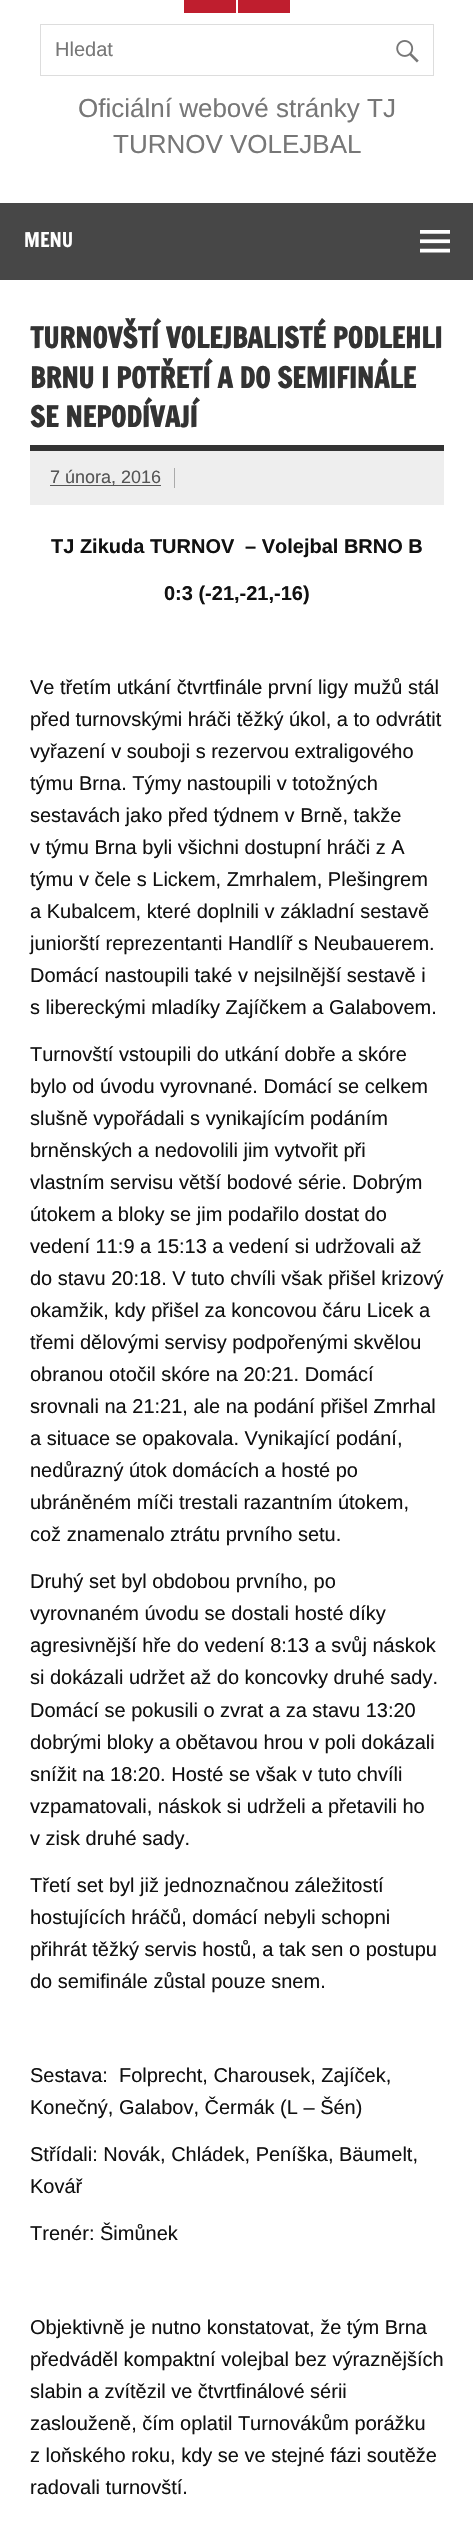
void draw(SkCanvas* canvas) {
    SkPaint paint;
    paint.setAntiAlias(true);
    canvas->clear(0xFFFFFFFF);
    paint.setColor(0xFFBF1E2E);
    canvas->drawRect(SkRect::MakeXYWH(184, 0, 52, 13), paint);
    canvas->drawRect(SkRect::MakeXYWH(238, 0, 52, 13), paint);
    paint.setStyle(SkPaint::kStroke_Style);
    paint.setStrokeWidth(1);
    paint.setColor(0xFFDDDDDD);
    canvas->drawRect(SkRect::MakeXYWH(40.5f, 24.5f, 393, 51), paint);
    SkFont font1(fontMgr->matchFamilyStyle("Liberation Sans", SkFontStyle::Normal()), 20);
    font1.setSubpixel(true);
    paint.setStyle(SkPaint::kFill_Style);
    paint.setColor(0xFF777777);
    canvas->drawString("Hledat", 55, 56, font1, paint);
    canvas->drawImageRect(SkImages::DeferredFromEncodedData(SkData::MakeFromFileName("img1.png")), SkRect::MakeXYWH(396, 40, 23, 23), SkSamplingOptions());
    SkFont font2(fontMgr->matchFamilyStyle("Liberation Sans", SkFontStyle::Normal()), 26);
    font2.setSubpixel(true);
    canvas->drawString("Oficiální webové stránky TJ", 78, 117, font2, paint);
    canvas->drawString("TURNOV VOLEJBAL", 113, 153, font2, paint);
    paint.setColor(0xFF474747);
    canvas->drawRect(SkRect::MakeXYWH(0, 203, 473, 77), paint);
    SkFont font3(fontMgr->matchFamilyStyle("Francois One", SkFontStyle::Normal()), 20);
    font3.setSubpixel(true);
    paint.setColor(0xFFFFFFFF);
    canvas->drawString("MENU", 24, 247, font3, paint);
    canvas->drawImageRect(SkImages::DeferredFromEncodedData(SkData::MakeFromFileName("img2.png")), SkRect::MakeXYWH(420, 230, 30, 23), SkSamplingOptions());
    paint.setColor(0xFF333333);
    canvas->drawRect(SkRect::MakeXYWH(30, 445, 414, 6), paint);
    SkFont font4(fontMgr->matchFamilyStyle("Francois One", SkFontStyle::Bold()), 28);
    font4.setSubpixel(true);
    canvas->drawString("TURNOVŠTÍ VOLEJBALISTÉ PODLEHLI", 30, 348, font4, paint);
    canvas->drawString("BRNU I POTŘETÍ A DO SEMIFINÁLE", 30, 388, font4, paint);
    canvas->drawString("SE NEPODÍVAJÍ", 30, 427, font4, paint);
    paint.setColor(0xFFEEEEEE);
    canvas->drawRect(SkRect::MakeXYWH(30, 451, 414, 54), paint);
    paint.setColor(0xFF555555);
    canvas->drawRect(SkRect::MakeXYWH(50, 485, 111, 1), paint);
    SkFont font5(fontMgr->matchFamilyStyle("Liberation Sans", SkFontStyle::Normal()), 18);
    font5.setSubpixel(true);
    canvas->drawString("7 února, 2016", 50, 483, font5, paint);
    paint.setColor(0xFFAAAAAA);
    canvas->drawRect(SkRect::MakeXYWH(174, 468, 1, 20), paint);
    SkFont font6(fontMgr->matchFamilyStyle("Liberation Sans", SkFontStyle::Bold()), 20);
    font6.setSubpixel(true);
    paint.setColor(0xFF111111);
    canvas->drawString("TJ Zikuda TURNOV", 51, 553, font6, paint);
    canvas->drawString("– Volejbal BRNO B", 245, 553, font6, paint);
    canvas->drawString("0:3 (-21,-21,-16)", 164, 600, font6, paint);
    canvas->drawString("Ve třetím utkání čtvrtfinále první ligy mužů stál", 30, 694, font1, paint);
    canvas->drawString("před turnovskými hráči těžký úkol, a to odvrátit", 30, 726, font1, paint);
    canvas->drawString("vyřazení v souboji s rezervou extraligového", 30, 758, font1, paint);
    canvas->drawString("týmu Brna. Týmy nastoupili v totožných", 30, 790, font1, paint);
    canvas->drawString("sestavách jako před týdnem v Brně, takže", 30, 822, font1, paint);
    canvas->drawString("v týmu Brna byli všichni dostupní hráči z A", 30, 854, font1, paint);
    canvas->drawString("týmu v čele s Lickem, Zmrhalem, Plešingrem", 30, 886, font1, paint);
    canvas->drawString("a Kubalcem, které doplnili v základní sestavě", 30, 918, font1, paint);
    canvas->drawString("juniorští reprezentanti Handlíř s Neubauerem.", 30, 950, font1, paint);
    canvas->drawString("Domácí nastoupili také v nejsilnější sestavě i", 30, 982, font1, paint);
    canvas->drawString("s libereckými mladíky Zajíčkem a Galabovem.", 30, 1014, font1, paint);
    canvas->drawString("Turnovští vstoupili do utkání dobře a skóre", 30, 1061, font1, paint);
    canvas->drawString("bylo od úvodu vyrovnané. Domácí se celkem", 30, 1093, font1, paint);
    canvas->drawString("slušně vypořádali s vynikajícím podáním", 30, 1125, font1, paint);
    canvas->drawString("brněnských a nedovolili jim vytvořit při", 30, 1157, font1, paint);
    canvas->drawString("vlastním servisu větší bodové série. Dobrým", 30, 1189, font1, paint);
    canvas->drawString("útokem a bloky se jim podařilo dostat do", 30, 1221, font1, paint);
    canvas->drawString("vedení 11:9 a 15:13 a vedení si udržovali až", 30, 1253, font1, paint);
    canvas->drawString("do stavu 20:18. V tuto chvíli však přišel krizový", 30, 1285, font1, paint);
    canvas->drawString("okamžik, kdy přišel za koncovou čáru Licek a", 30, 1317, font1, paint);
    canvas->drawString("třemi dělovými servisy podpořenými skvělou", 30, 1349, font1, paint);
    canvas->drawString("obranou otočil skóre na 20:21. Domácí", 30, 1381, font1, paint);
    canvas->drawString("srovnali na 21:21, ale na podání přišel Zmrhal", 30, 1413, font1, paint);
    canvas->drawString("a situace se opakovala. Vynikající podání,", 30, 1445, font1, paint);
    canvas->drawString("nedůrazný útok domácích a hosté po", 30, 1477, font1, paint);
    canvas->drawString("ubráněném míči trestali razantním útokem,", 30, 1509, font1, paint);
    canvas->drawString("což znamenalo ztrátu prvního setu.", 30, 1541, font1, paint);
    canvas->drawString("Druhý set byl obdobou prvního, po", 30, 1588, font1, paint);
    canvas->drawString("vyrovnaném úvodu se dostali hosté díky", 30, 1620, font1, paint);
    canvas->drawString("agresivnější hře do vedení 8:13 a svůj náskok", 30, 1652, font1, paint);
    canvas->drawString("si dokázali udržet až do koncovky druhé sady.", 30, 1684, font1, paint);
    canvas->drawString("Domácí se pokusili o zvrat a za stavu 13:20", 30, 1717, font1, paint);
    canvas->drawString("dobrými bloky a obětavou hrou v poli dokázali", 30, 1749, font1, paint);
    canvas->drawString("snížit na 18:20. Hosté se však v tuto chvíli", 30, 1781, font1, paint);
    canvas->drawString("vzpamatovali, náskok si udrželi a přetavili ho", 30, 1813, font1, paint);
    canvas->drawString("v zisk druhé sady.", 30, 1845, font1, paint);
    canvas->drawString("Třetí set byl již jednoznačnou záležitostí", 30, 1892, font1, paint);
    canvas->drawString("hostujících hráčů, domácí nebyli schopni", 30, 1924, font1, paint);
    canvas->drawString("přihrát těžký servis hostů, a tak sen o postupu", 30, 1956, font1, paint);
    canvas->drawString("do semifinále zůstal pouze snem.", 30, 1988, font1, paint);
    canvas->drawString("Sestava:  Folprecht, Charousek, Zajíček,", 30, 2082, font1, paint);
    canvas->drawString("Konečný, Galabov, Čermák (L – Šén)", 30, 2114, font1, paint);
    canvas->drawString("Střídali: Novák, Chládek, Peníška, Bäumelt,", 30, 2161, font1, paint);
    canvas->drawString("Kovář", 30, 2193, font1, paint);
    canvas->drawString("Trenér: Šimůnek", 30, 2240, font1, paint);
    canvas->drawString("Objektivně je nutno konstatovat, že tým Brna", 30, 2334, font1, paint);
    canvas->drawString("předváděl kompaktní volejbal bez výraznějších", 30, 2366, font1, paint);
    canvas->drawString("slabin a zvítězil ve čtvrtfinálové sérii", 30, 2398, font1, paint);
    canvas->drawString("zaslouženě, čím oplatil Turnovákům porážku", 30, 2430, font1, paint);
    canvas->drawString("z loňského roku, kdy se ve stejné fázi soutěže", 30, 2462, font1, paint);
    canvas->drawString("radovali turnovští.", 30, 2494, font1, paint);
}
